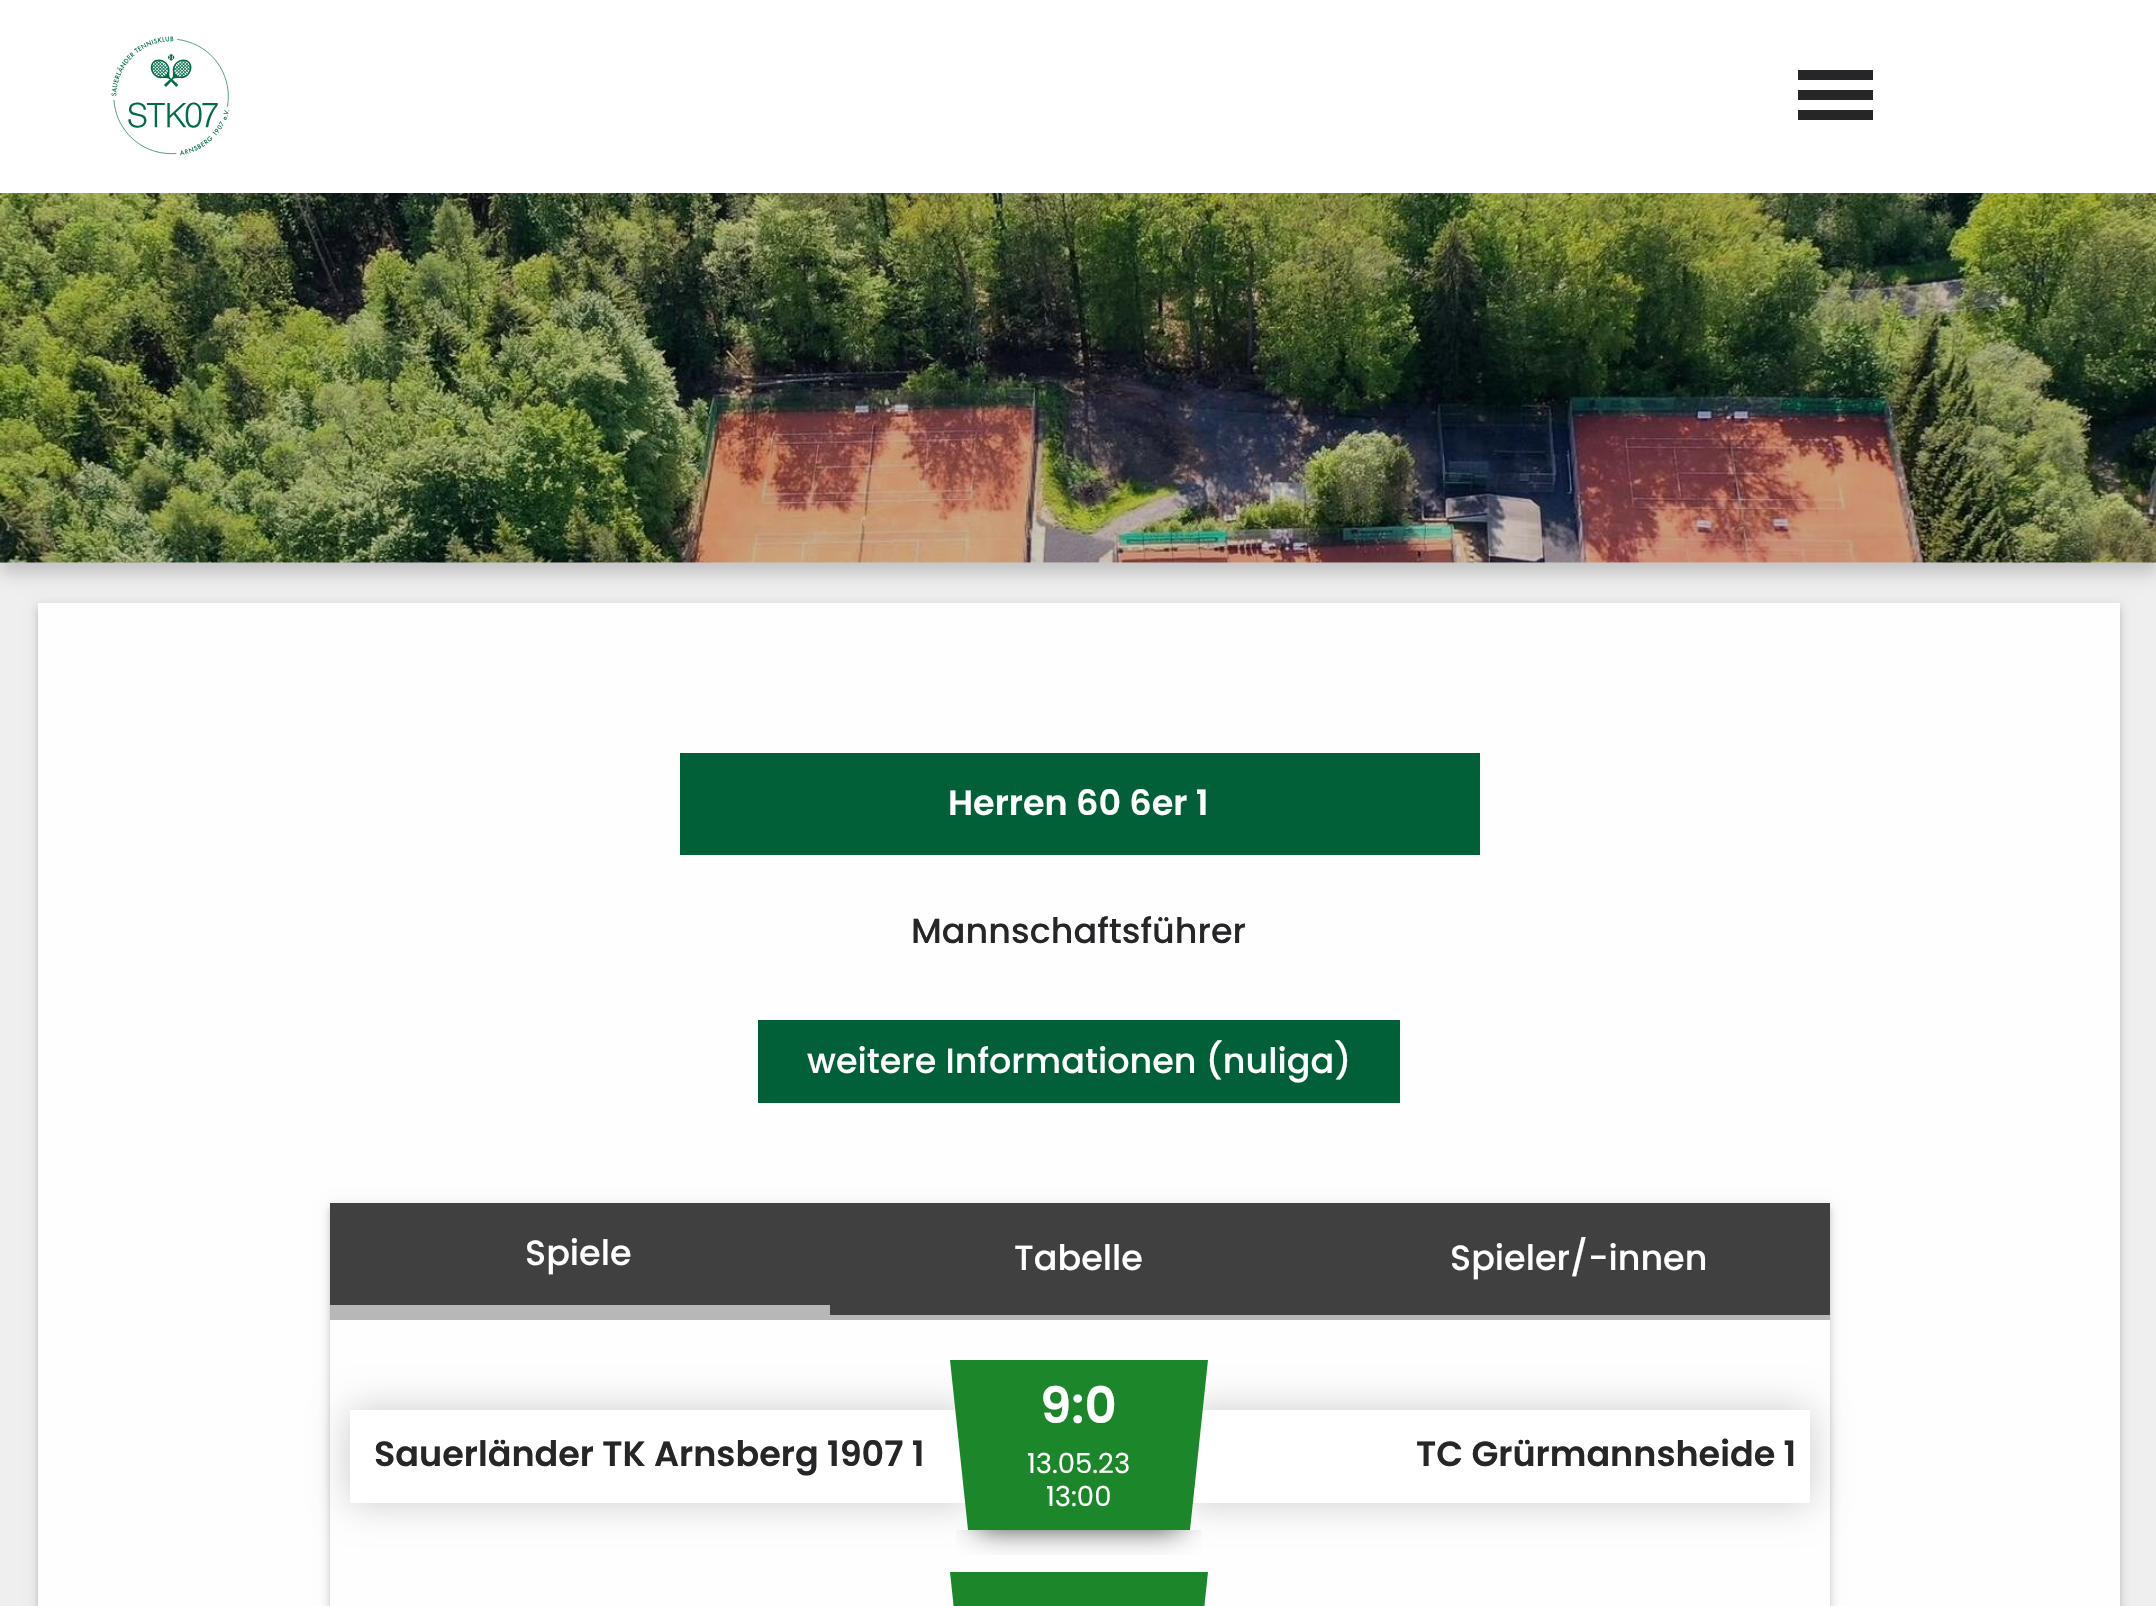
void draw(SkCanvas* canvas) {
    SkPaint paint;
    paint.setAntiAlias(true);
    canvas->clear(0xFFFFFFFF);
    canvas->drawImageRect(SkImages::DeferredFromEncodedData(SkData::MakeFromFileName("img1.png")), SkRect::MakeXYWH(111, 36, 119, 120), SkSamplingOptions());
    paint.setColor(0xFF262629);
    canvas->drawRect(SkRect::MakeXYWH(1798, 70, 75, 10), paint);
    canvas->drawRect(SkRect::MakeXYWH(1798, 90, 75, 10), paint);
    canvas->drawRect(SkRect::MakeXYWH(1798, 110, 75, 10), paint);
    canvas->drawImageRect(SkImages::DeferredFromEncodedData(SkData::MakeFromFileName("img2.png")), SkRect::MakeXYWH(0, 193, 2156, 370), SkSamplingOptions());
    paint.setColor(0x33000000);
    canvas->drawRect(SkRect::MakeXYWH(0, 193, 2156, 370), paint);
    paint.setColor(0xFFEFEFEF);
    canvas->drawRect(SkRect::MakeXYWH(0, 563, 2156, 1043), paint);
    canvas->save();
    canvas->clipPath(SkPathBuilder(SkPathFillType::kEvenOdd).moveTo(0, 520).lineTo(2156, 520).lineTo(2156, 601).lineTo(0, 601).close().moveTo(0, 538).lineTo(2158, 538).lineTo(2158, 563).lineTo(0, 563).close().detach(), true);
    paint.setColor(0x33000000);
    paint.setMaskFilter(SkMaskFilter::MakeBlur(kNormal_SkBlurStyle, 9));
    canvas->drawRect(SkRect::MakeXYWH(0, 548, 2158, 25), paint);
    paint.setMaskFilter(nullptr);
    canvas->restore();
    paint.setColor(0x1F000000);
    paint.setMaskFilter(SkMaskFilter::MakeBlur(kNormal_SkBlurStyle, 6));
    canvas->drawRect(SkRect::MakeXYWH(38, 605, 2082, 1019), paint);
    paint.setMaskFilter(nullptr);
    paint.setColor(0x24000000);
    paint.setMaskFilter(SkMaskFilter::MakeBlur(kNormal_SkBlurStyle, 2.5f));
    canvas->drawRect(SkRect::MakeXYWH(38, 608, 2082, 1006), paint);
    paint.setMaskFilter(nullptr);
    paint.setColor(0xFFFEFEFE);
    canvas->drawRect(SkRect::MakeXYWH(38, 603, 2082, 1003), paint);
    paint.setColor(0xFF016038);
    canvas->drawRect(SkRect::MakeXYWH(680, 753, 800, 102), paint);
    SkFont font1(fontMgr->matchFamilyStyle("Poppins", SkFontStyle(600, SkFontStyle::kNormal_Width, SkFontStyle::kUpright_Slant)), 35);
    font1.setSubpixel(true);
    paint.setColor(0xFFFFFFFF);
    canvas->drawString("Herren 60 6er 1", 948, 815, font1, paint);
    SkFont font2(fontMgr->matchFamilyStyle("Poppins", SkFontStyle(500, SkFontStyle::kNormal_Width, SkFontStyle::kUpright_Slant)), 35);
    font2.setSubpixel(true);
    paint.setColor(0xFF262629);
    canvas->drawString("Mannschaftsführer", 911, 943, font2, paint);
    paint.setColor(0xFF016038);
    canvas->drawRect(SkRect::MakeXYWH(758, 1020, 642, 83), paint);
    paint.setColor(0xFFFFFFFF);
    canvas->drawString("weitere Informationen (nuliga)", 807, 1073, font2, paint);
    canvas->save();
    canvas->clipPath(SkPathBuilder(SkPathFillType::kEvenOdd).moveTo(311, 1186).lineTo(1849, 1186).lineTo(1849, 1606).lineTo(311, 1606).close().moveTo(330, 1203).lineTo(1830, 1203).lineTo(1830, 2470).lineTo(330, 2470).close().detach(), true);
    paint.setColor(0x1F000000);
    paint.setMaskFilter(SkMaskFilter::MakeBlur(kNormal_SkBlurStyle, 6));
    canvas->drawRect(SkRect::MakeXYWH(330, 1205, 1500, 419), paint);
    paint.setMaskFilter(nullptr);
    canvas->restore();
    canvas->save();
    canvas->clipPath(SkPathBuilder(SkPathFillType::kEvenOdd).moveTo(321, 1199).lineTo(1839, 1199).lineTo(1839, 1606).lineTo(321, 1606).close().moveTo(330, 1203).lineTo(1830, 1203).lineTo(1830, 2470).lineTo(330, 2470).close().detach(), true);
    paint.setColor(0x24000000);
    paint.setMaskFilter(SkMaskFilter::MakeBlur(kNormal_SkBlurStyle, 2.5f));
    canvas->drawRect(SkRect::MakeXYWH(330, 1208, 1500, 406), paint);
    paint.setMaskFilter(nullptr);
    canvas->restore();
    paint.setColor(0xFF404040);
    canvas->drawRect(SkRect::MakeXYWH(330, 1203, 1500, 112), paint);
    paint.setColor(0xFFB7B7B7);
    canvas->drawRect(SkRect::MakeXYWH(330, 1315, 1500, 5), paint);
    canvas->drawRect(SkRect::MakeXYWH(330, 1305, 500, 10), paint);
    paint.setColor(0xFFFFFFFF);
    canvas->drawString("Spiele", 525, 1265, font2, paint);
    canvas->drawString("Tabelle", 1014, 1270, font2, paint);
    canvas->drawString("Spieler/-innen", 1450, 1270, font2, paint);
    paint.setColor(0x33000000);
    paint.setMaskFilter(SkMaskFilter::MakeBlur(kNormal_SkBlurStyle, 19));
    canvas->drawRect(SkRect::MakeXYWH(350, 1410, 620, 93), paint);
    paint.setMaskFilter(nullptr);
    paint.setColor(0xFFFFFFFF);
    canvas->drawRect(SkRect::MakeXYWH(350, 1410, 616, 93), paint);
    paint.setColor(0xFF262629);
    canvas->drawString("Sauerländer TK Arnsberg 1907 1", 374, 1466, font1, paint);
    paint.setColor(0x33000000);
    paint.setMaskFilter(SkMaskFilter::MakeBlur(kNormal_SkBlurStyle, 19));
    canvas->drawRect(SkRect::MakeXYWH(1188, 1410, 622, 93), paint);
    paint.setMaskFilter(nullptr);
    paint.setColor(0xFFFFFFFF);
    canvas->drawRect(SkRect::MakeXYWH(1192, 1410, 618, 93), paint);
    canvas->save();
    canvas->clipRect(SkRect::MakeXYWH(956, 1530, 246, 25));
    paint.setColor(0xCC000000);
    paint.setMaskFilter(SkMaskFilter::MakeBlur(kNormal_SkBlurStyle, 14));
    canvas->drawRect(SkRect::MakeXYWH(978, 1413, 202, 115), paint);
    paint.setMaskFilter(nullptr);
    canvas->restore();
    paint.setColor(0xFF1B872A);
    canvas->drawPath(SkPathBuilder().moveTo(950, 1360).lineTo(1208, 1360).lineTo(1190, 1530).lineTo(968, 1530).close().detach(), paint);
    SkFont font3(fontMgr->matchFamilyStyle("Poppins", SkFontStyle(600, SkFontStyle::kNormal_Width, SkFontStyle::kUpright_Slant)), 50);
    font3.setSubpixel(true);
    paint.setColor(0xFFFFFFFF);
    canvas->drawString("9:0", 1040, 1423, font3, paint);
    SkFont font4(fontMgr->matchFamilyStyle("Poppins", SkFontStyle::Normal()), 27.5f);
    font4.setSubpixel(true);
    canvas->drawString("13.05.23", 1027, 1473, font4, paint);
    canvas->drawString("13:00", 1046, 1506, font4, paint);
    paint.setColor(0xFF262629);
    canvas->drawString("TC Grürmannsheide 1", 1416, 1466, font1, paint);
    paint.setColor(0xFF1B872A);
    canvas->drawPath(SkPathBuilder().moveTo(950, 1572).lineTo(1208, 1572).lineTo(1190, 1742).lineTo(968, 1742).close().detach(), paint);
}
